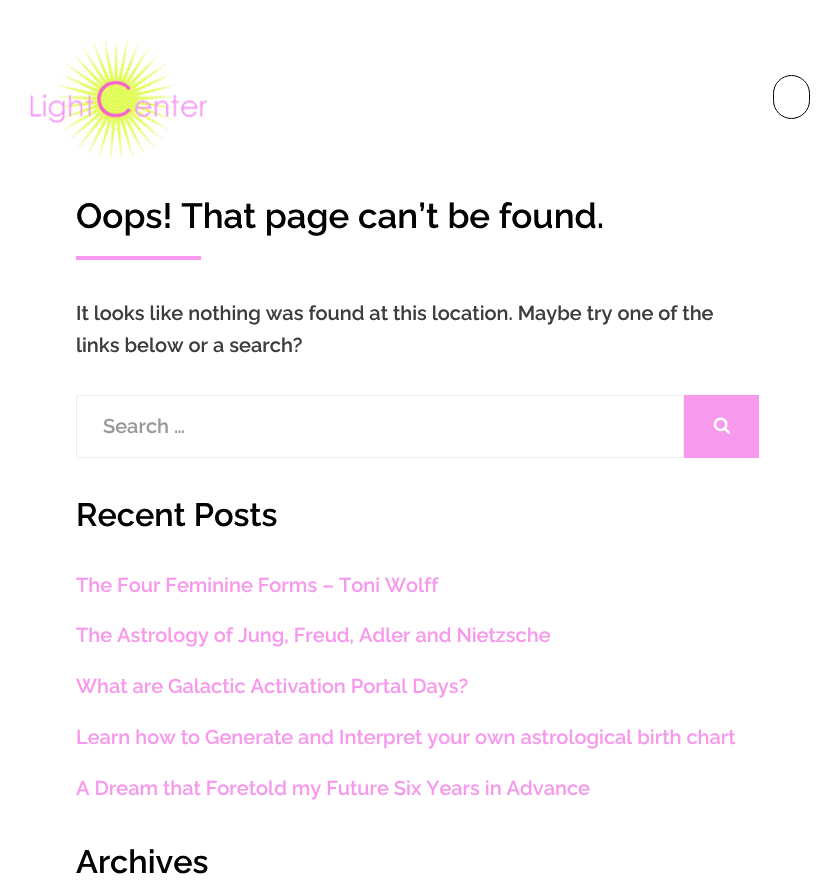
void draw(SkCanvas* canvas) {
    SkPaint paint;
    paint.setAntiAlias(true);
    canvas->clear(0xFFFFFFFF);
    canvas->drawImageRect(SkImages::DeferredFromEncodedData(SkData::MakeFromFileName("img1.png")), SkRect::MakeXYWH(30, 39, 177, 120), SkSamplingOptions());
    paint.setStyle(SkPaint::kStroke_Style);
    paint.setStrokeWidth(1);
    paint.setColor(0xFF020202);
    canvas->drawRoundRect(SkRect::MakeXYWH(773.5f, 75.5f, 36, 43), 18, 18, paint);
    SkFont font1(fontMgr->matchFamilyStyle("Raleway", SkFontStyle(600, SkFontStyle::kNormal_Width, SkFontStyle::kUpright_Slant)), 35);
    font1.setSubpixel(true);
    paint.setStyle(SkPaint::kFill_Style);
    canvas->drawString("Oops! That page can’t be found.", 76, 228, font1, paint);
    paint.setColor(0xFFF799ED);
    canvas->drawRect(SkRect::MakeXYWH(76, 256, 125, 4), paint);
    SkFont font2(fontMgr->matchFamilyStyle("Raleway", SkFontStyle(600, SkFontStyle::kNormal_Width, SkFontStyle::kUpright_Slant)), 20);
    font2.setSubpixel(true);
    paint.setColor(0xFF3D3D3D);
    canvas->drawString("It looks like nothing was found at this location. Maybe try one of the", 76, 320, font2, paint);
    canvas->drawString("links below or a search?", 76, 352, font2, paint);
    paint.setStyle(SkPaint::kStroke_Style);
    paint.setColor(0xFFEEEEEE);
    canvas->drawRoundRect(SkRect::MakeXYWH(76.5f, 395.5f, 607, 62), 2, 2, paint);
    paint.setStyle(SkPaint::kFill_Style);
    paint.setColor(0xFF999999);
    canvas->drawString("Search …", 103, 433, font2, paint);
    paint.setColor(0xFFF799ED);
    canvas->drawRect(SkRect::MakeXYWH(684, 395, 75, 63), paint);
    canvas->drawImageRect(SkImages::DeferredFromEncodedData(SkData::MakeFromFileName("img2.png")), SkRect::MakeXYWH(713, 417, 17, 17), SkSamplingOptions());
    SkFont font3(fontMgr->matchFamilyStyle("Raleway", SkFontStyle(600, SkFontStyle::kNormal_Width, SkFontStyle::kUpright_Slant)), 32.5f);
    font3.setSubpixel(true);
    paint.setColor(0xFF020202);
    canvas->drawString("Recent Posts", 76, 526, font3, paint);
    paint.setColor(0xFFF799ED);
    canvas->drawString("The Four Feminine Forms – Toni Wolff", 76, 592, font2, paint);
    canvas->drawString("The Astrology of Jung, Freud, Adler and Nietzsche", 76, 642, font2, paint);
    canvas->drawString("What are Galactic Activation Portal Days?", 76, 693, font2, paint);
    canvas->drawString("Learn how to Generate and Interpret your own astrological birth chart", 76, 744, font2, paint);
    canvas->drawString("A Dream that Foretold my Future Six Years in Advance", 76, 795, font2, paint);
    paint.setColor(0xFF020202);
    canvas->drawString("Archives", 76, 873, font3, paint);
}
